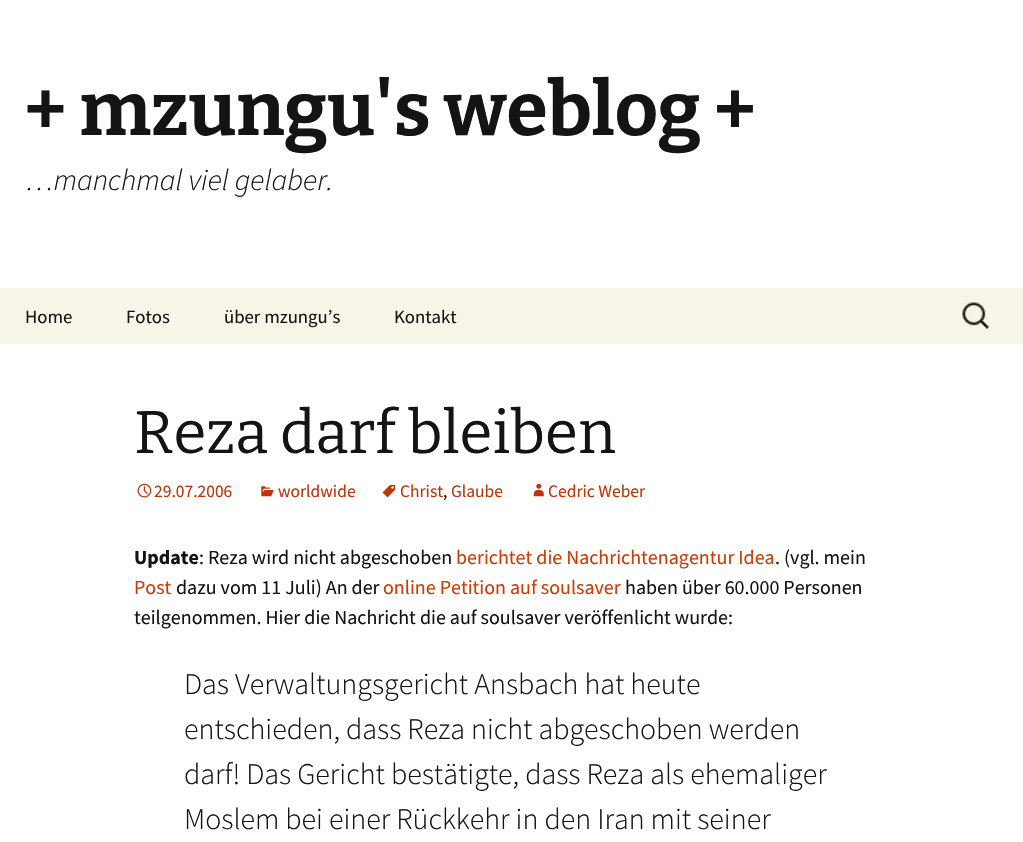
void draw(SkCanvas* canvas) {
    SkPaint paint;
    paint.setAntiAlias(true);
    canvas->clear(0xFFFFFFFF);
    SkFont font1(fontMgr->matchFamilyStyle("Bitter", SkFontStyle(100, SkFontStyle::kNormal_Width, SkFontStyle::kUpright_Slant)), 75);
    font1.setSubpixel(true);
    paint.setColor(0xFF141412);
    canvas->drawString("+ mzungu's weblog +", 25, 135, font1, paint);
    SkFont font2(fontMgr->matchFamilyStyle("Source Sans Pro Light", SkFontStyle(300, SkFontStyle::kNormal_Width, SkFontStyle::kItalic_Slant)), 30);
    font2.setSubpixel(true);
    canvas->drawString("…manchmal viel gelaber.", 25, 190, font2, paint);
    paint.setColor(0xFFF7F5E7);
    canvas->drawRect(SkRect::MakeXYWH(0, 288, 1023, 56), paint);
    SkFont font3(fontMgr->matchFamilyStyle("Source Sans Pro", SkFontStyle::Normal()), 18.75f);
    font3.setSubpixel(true);
    paint.setColor(0xFF141412);
    canvas->drawString("Home", 25, 323, font3, paint);
    canvas->drawString("Fotos", 126, 323, font3, paint);
    canvas->drawString("über mzungu’s", 224, 323, font3, paint);
    canvas->drawString("Kontakt", 394, 323, font3, paint);
    canvas->drawImageRect(SkImages::DeferredFromEncodedData(SkData::MakeFromFileName("img1.png")), SkRect::MakeXYWH(962, 302, 27, 27), SkSamplingOptions());
    SkFont font4(fontMgr->matchFamilyStyle("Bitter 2", SkFontStyle(100, SkFontStyle::kNormal_Width, SkFontStyle::kUpright_Slant)), 60);
    font4.setSubpixel(true);
    canvas->drawString("Reza darf bleiben", 134, 453, font4, paint);
    canvas->drawImageRect(SkImages::DeferredFromEncodedData(SkData::MakeFromFileName("img2.png")), SkRect::MakeXYWH(137, 483, 15, 15), SkSamplingOptions());
    SkFont font5(fontMgr->matchFamilyStyle("Source Sans Pro", SkFontStyle::Normal()), 17.5f);
    font5.setSubpixel(true);
    paint.setColor(0xFFBC360A);
    canvas->drawString("29.07.2006", 154, 497, font5, paint);
    canvas->drawImageRect(SkImages::DeferredFromEncodedData(SkData::MakeFromFileName("img3.png")), SkRect::MakeXYWH(261, 486, 13, 11), SkSamplingOptions());
    canvas->drawString("worldwide", 278, 497, font5, paint);
    canvas->drawImageRect(SkImages::DeferredFromEncodedData(SkData::MakeFromFileName("img4.png")), SkRect::MakeXYWH(382, 485, 13, 13), SkSamplingOptions());
    canvas->drawString("Christ", 400, 497, font5, paint);
    paint.setColor(0xFF141412);
    canvas->drawString(",", 443, 497, font5, paint);
    paint.setColor(0xFFBC360A);
    canvas->drawString("Glaube", 451, 497, font5, paint);
    canvas->drawImageRect(SkImages::DeferredFromEncodedData(SkData::MakeFromFileName("img5.png")), SkRect::MakeXYWH(533, 483, 11, 14), SkSamplingOptions());
    canvas->drawString("Cedric Weber", 548, 497, font5, paint);
    SkFont font6(fontMgr->matchFamilyStyle("Source Sans Pro", SkFontStyle::Bold()), 20);
    font6.setSubpixel(true);
    paint.setColor(0xFF141412);
    canvas->drawString("Update", 134, 564, font6, paint);
    SkFont font7(fontMgr->matchFamilyStyle("Source Sans Pro", SkFontStyle::Normal()), 20);
    font7.setSubpixel(true);
    canvas->drawString(": Reza wird nicht abgeschoben", 199, 564, font7, paint);
    paint.setColor(0xFFCA3C08);
    canvas->drawString("berichtet die Nachrichtenagentur Idea", 456, 564, font7, paint);
    paint.setColor(0xFF141412);
    canvas->drawString(". (vgl. mein", 775, 564, font7, paint);
    paint.setColor(0xFFCA3C08);
    canvas->drawString("Post", 134, 594, font7, paint);
    paint.setColor(0xFF141412);
    canvas->drawString("dazu vom 11 Juli) An der", 176, 594, font7, paint);
    paint.setColor(0xFFCA3C08);
    canvas->drawString("online Petition auf soulsaver", 383, 594, font7, paint);
    paint.setColor(0xFF141412);
    canvas->drawString("haben über 60.000 Personen", 625, 594, font7, paint);
    canvas->drawString("teilgenommen. Hier die Nachricht die auf soulsaver veröffenlicht wurde:", 134, 624, font7, paint);
    SkFont font8(fontMgr->matchFamilyStyle("Source Sans Pro Light", SkFontStyle(300, SkFontStyle::kNormal_Width, SkFontStyle::kUpright_Slant)), 30);
    font8.setSubpixel(true);
    canvas->drawString("Das Verwaltungsgericht Ansbach hat heute", 184, 694, font8, paint);
    canvas->drawString("entschieden, dass Reza nicht abgeschoben werden", 184, 739, font8, paint);
    canvas->drawString("darf! Das Gericht bestätigte, dass Reza als ehemaliger", 184, 784, font8, paint);
    canvas->drawString("Moslem bei einer Rückkehr in den Iran mit seiner", 184, 829, font8, paint);
}
